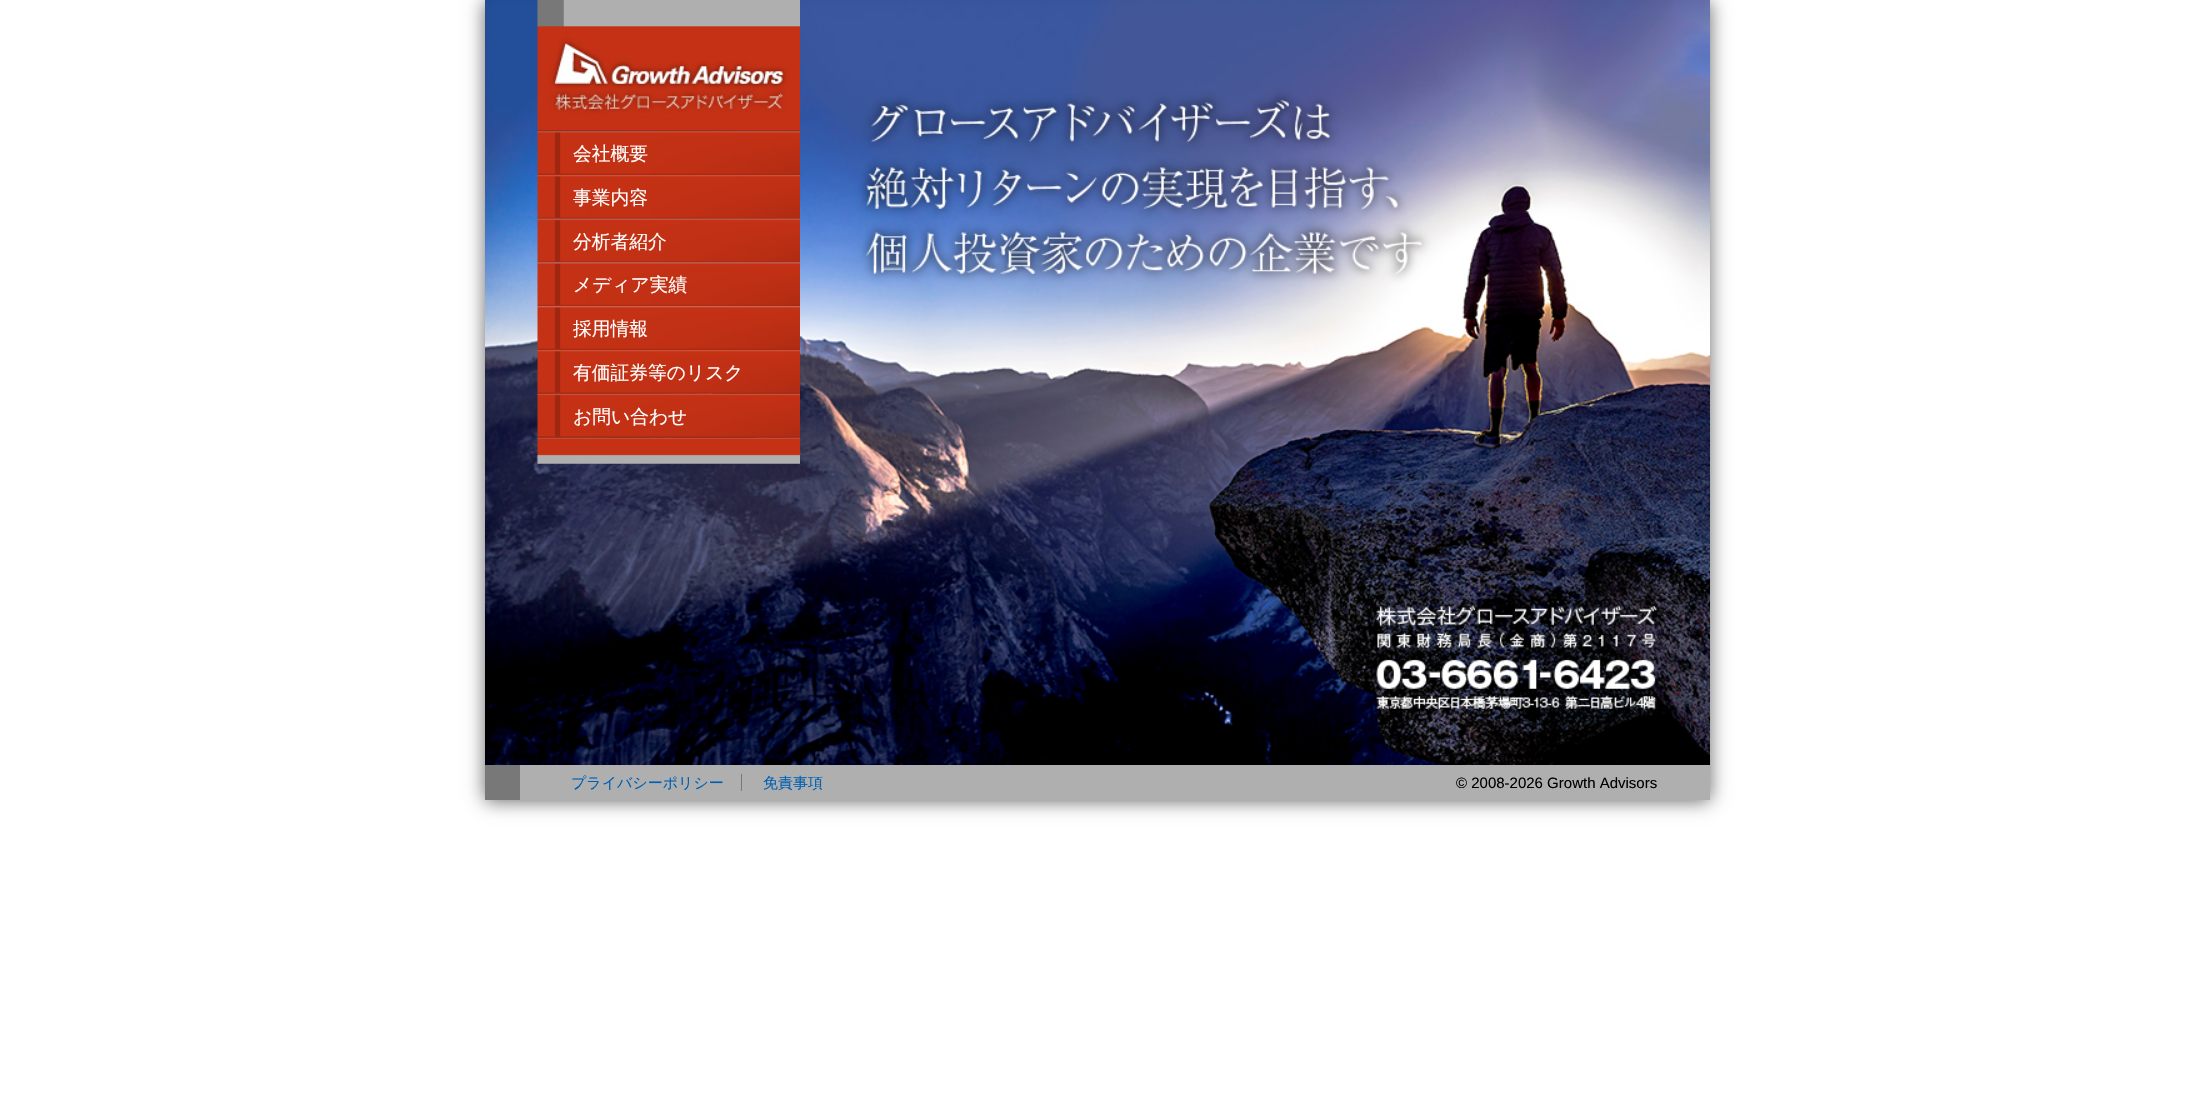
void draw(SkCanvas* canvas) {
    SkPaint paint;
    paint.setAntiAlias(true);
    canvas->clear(0xFFFFFFFF);
    paint.setColor(0xFF666666);
    paint.setMaskFilter(SkMaskFilter::MakeBlur(kNormal_SkBlurStyle, 9));
    canvas->drawRect(SkRect::MakeXYWH(485, 1, 1225, 800), paint);
    paint.setMaskFilter(nullptr);
    canvas->drawImageRect(SkImages::DeferredFromEncodedData(SkData::MakeFromFileName("img1.png")), SkRect::MakeXYWH(485, 0, 1225, 765), SkSamplingOptions());
    canvas->drawImageRect(SkImages::DeferredFromEncodedData(SkData::MakeFromFileName("img2.png")), SkRect::MakeXYWH(537, 437, 263, 27), SkSamplingOptions());
    canvas->drawImageRect(SkImages::DeferredFromEncodedData(SkData::MakeFromFileName("img3.png")), SkRect::MakeXYWH(537, 0, 263, 132), SkSamplingOptions());
    canvas->drawImageRect(SkImages::DeferredFromEncodedData(SkData::MakeFromFileName("img4.png")), SkRect::MakeXYWH(537, 131, 263, 44), SkSamplingOptions());
    SkFont font1(fontMgr->matchFamilyStyle("WenQuanYi Zen Hei", SkFontStyle(500, SkFontStyle::kNormal_Width, SkFontStyle::kUpright_Slant)), 18.75f);
    font1.setSubpixel(true);
    paint.setColor(0xFFFFFFFF);
    canvas->drawString("会社概要", 573, 160, font1, paint);
    canvas->drawImageRect(SkImages::DeferredFromEncodedData(SkData::MakeFromFileName("img5.png")), SkRect::MakeXYWH(537, 175, 263, 44), SkSamplingOptions());
    canvas->drawString("事業内容", 573, 204, font1, paint);
    canvas->drawImageRect(SkImages::DeferredFromEncodedData(SkData::MakeFromFileName("img6.png")), SkRect::MakeXYWH(537, 218, 263, 45), SkSamplingOptions());
    canvas->drawString("分析者紹介", 573, 248, font1, paint);
    canvas->drawImageRect(SkImages::DeferredFromEncodedData(SkData::MakeFromFileName("img7.png")), SkRect::MakeXYWH(537, 262, 263, 45), SkSamplingOptions());
    canvas->drawString("メディア実績", 573, 291, font1, paint);
    canvas->drawImageRect(SkImages::DeferredFromEncodedData(SkData::MakeFromFileName("img8.png")), SkRect::MakeXYWH(537, 306, 263, 44), SkSamplingOptions());
    canvas->drawString("採用情報", 573, 335, font1, paint);
    canvas->drawImageRect(SkImages::DeferredFromEncodedData(SkData::MakeFromFileName("img9.png")), SkRect::MakeXYWH(537, 350, 263, 44), SkSamplingOptions());
    canvas->drawString("有価証券等のリスク", 573, 379, font1, paint);
    canvas->drawImageRect(SkImages::DeferredFromEncodedData(SkData::MakeFromFileName("img10.png")), SkRect::MakeXYWH(537, 393, 263, 45), SkSamplingOptions());
    canvas->drawString("お問い合わせ", 573, 423, font1, paint);
    paint.setColor(0xFFAFAFAF);
    canvas->drawRect(SkRect::MakeXYWH(520, 765, 1190, 35), paint);
    paint.setColor(0xFF787878);
    canvas->drawRect(SkRect::MakeXYWH(485, 765, 35, 35), paint);
    SkFont font2(fontMgr->matchFamilyStyle("WenQuanYi Zen Hei", SkFontStyle(500, SkFontStyle::kNormal_Width, SkFontStyle::kUpright_Slant)), 15);
    font2.setSubpixel(true);
    paint.setColor(0xFF0060B3);
    canvas->drawString("プライバシーポリシー", 571, 788, font2, paint);
    paint.setColor(0xFF787878);
    canvas->drawRect(SkRect::MakeXYWH(741, 774, 1, 17), paint);
    paint.setColor(0xFF0060B3);
    canvas->drawString("免責事項", 763, 788, font2, paint);
    SkFont font3(fontMgr->matchFamilyStyle("Liberation Sans", SkFontStyle::Normal()), 15);
    font3.setSubpixel(true);
    paint.setColor(0xFF000000);
    canvas->drawString("© 2008-2026 Growth Advisors", 1456, 788, font3, paint);
}
